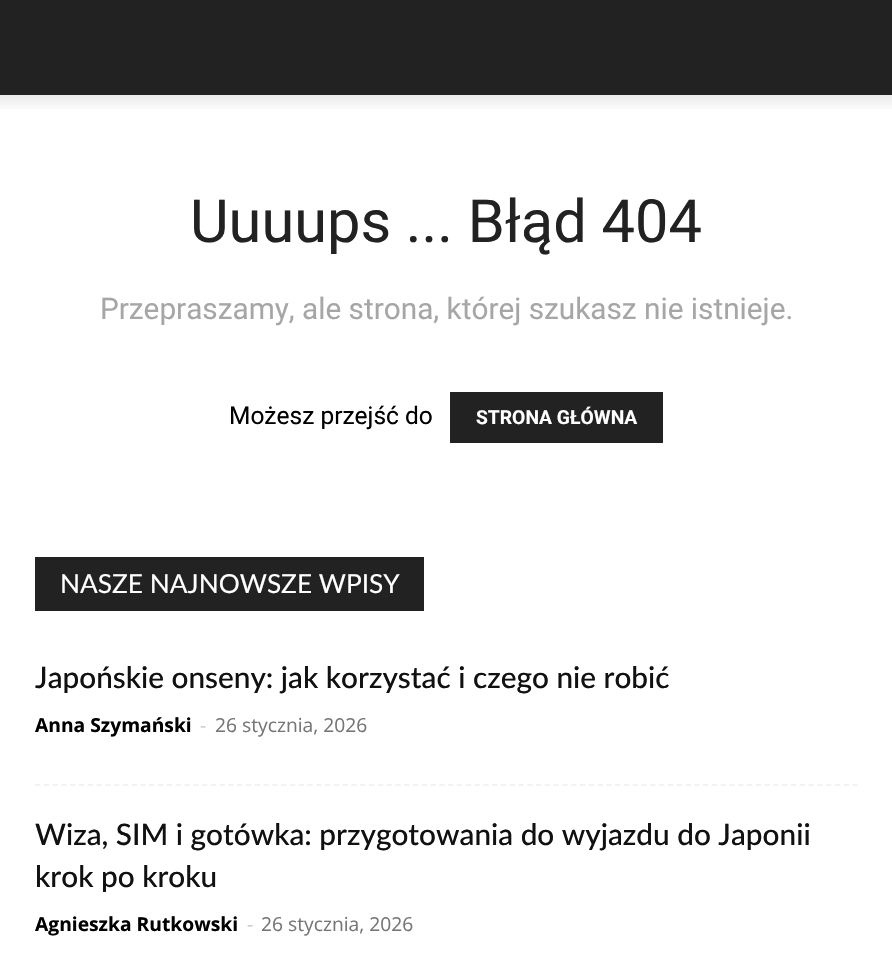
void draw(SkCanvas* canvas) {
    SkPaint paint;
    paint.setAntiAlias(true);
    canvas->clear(0xFFFFFFFF);
    paint.setColor(0xFF222222);
    canvas->drawRect(SkRect::MakeXYWH(0, 0, 892, 95), paint);
    canvas->drawImageRect(SkImages::DeferredFromEncodedData(SkData::MakeFromFileName("img1.png")), SkRect::MakeXYWH(0, 95, 892, 14), SkSamplingOptions());
    SkFont font1(fontMgr->matchFamilyStyle("Roboto", SkFontStyle::Normal()), 59.5f);
    font1.setSubpixel(true);
    canvas->drawString("Uuuups ... Błąd 404", 190, 242, font1, paint);
    SkFont font2(fontMgr->matchFamilyStyle("Roboto", SkFontStyle::Normal()), 29.75f);
    font2.setSubpixel(true);
    paint.setColor(0xFFA6A6A6);
    canvas->drawString("Przepraszamy, ale strona, której szukasz nie istnieje.", 100, 319, font2, paint);
    SkFont font3(fontMgr->matchFamilyStyle("Roboto", SkFontStyle::Normal()), 24.5f);
    font3.setSubpixel(true);
    paint.setColor(0xFF000000);
    canvas->drawString("Możesz przejść do", 229, 424, font3, paint);
    paint.setColor(0xFF222222);
    canvas->drawRect(SkRect::MakeXYWH(450, 392, 213, 51), paint);
    SkFont font4(fontMgr->matchFamilyStyle("Roboto", SkFontStyle::Bold()), 19.25f);
    font4.setSubpixel(true);
    paint.setColor(0xFFFFFFFF);
    canvas->drawString("STRONA GŁÓWNA", 476, 424, font4, paint);
    paint.setColor(0xFF222222);
    canvas->drawRect(SkRect::MakeXYWH(35, 557, 389, 54), paint);
    SkFont font5(fontMgr->matchFamilyStyle("Lato", SkFontStyle::Normal()), 26.25f);
    font5.setSubpixel(true);
    paint.setColor(0xFFFFFFFF);
    canvas->drawString("NASZE NAJNOWSZE WPISY", 60, 593, font5, paint);
    paint.setStyle(SkPaint::kStroke_Style);
    paint.setStrokeWidth(1.8f);
    paint.setColor(0xFFF2F2F2);
    paint.setPathEffect(SkDashPathEffect::Make({{5.25f, 3.54f}}, 0));
    canvas->drawPath(SkPathBuilder().moveTo(35, 785).lineTo(857.5f, 785).detach(), paint);
    paint.setPathEffect(nullptr);
    SkFont font6(fontMgr->matchFamilyStyle("Lato", SkFontStyle(500, SkFontStyle::kNormal_Width, SkFontStyle::kUpright_Slant)), 29.75f);
    font6.setSubpixel(true);
    paint.setStyle(SkPaint::kFill_Style);
    paint.setColor(0xFF111111);
    canvas->drawString("Japońskie onseny: jak korzystać i czego nie robić", 35, 688, font6, paint);
    SkFont font7(fontMgr->matchFamilyStyle("Open Sans", SkFontStyle::Bold()), 19.25f);
    font7.setSubpixel(true);
    paint.setColor(0xFF000000);
    canvas->drawString("Anna Szymański", 35, 732, font7, paint);
    SkFont font8(fontMgr->matchFamilyStyle("Open Sans", SkFontStyle::Normal()), 19.25f);
    font8.setSubpixel(true);
    paint.setColor(0xFFCCCCCC);
    canvas->drawString("-", 200, 732, font8, paint);
    paint.setColor(0xFF767676);
    canvas->drawString("26 stycznia, 2026", 215, 732, font8, paint);
    paint.setColor(0xFF111111);
    canvas->drawString("Wiza, SIM i gotówka: przygotowania do wyjazdu do Japonii", 35, 845, font6, paint);
    canvas->drawString("krok po kroku", 35, 887, font6, paint);
    paint.setColor(0xFF000000);
    canvas->drawString("Agnieszka Rutkowski", 35, 931, font7, paint);
    paint.setColor(0xFFCCCCCC);
    canvas->drawString("-", 247, 931, font8, paint);
    paint.setColor(0xFF767676);
    canvas->drawString("26 stycznia, 2026", 261, 931, font8, paint);
}
